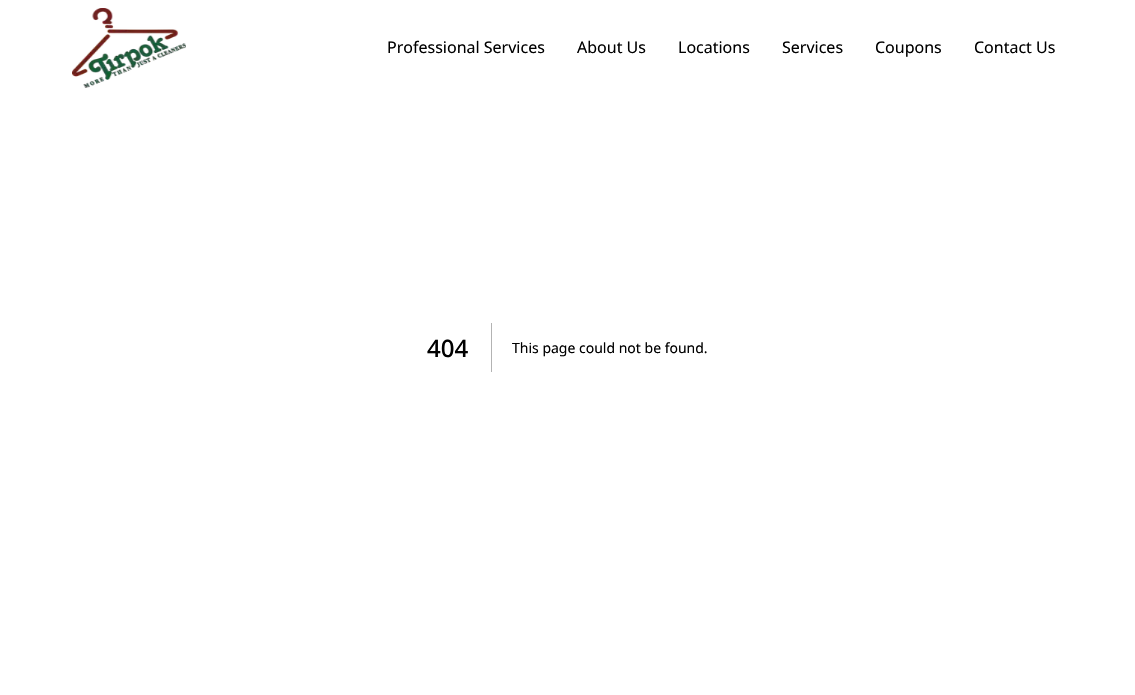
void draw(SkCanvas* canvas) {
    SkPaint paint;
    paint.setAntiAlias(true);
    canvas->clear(0xFFFFFFFF);
    canvas->drawImageRect(SkImages::DeferredFromEncodedData(SkData::MakeFromFileName("img1.png")), SkRect::MakeXYWH(72, 8, 114, 80), SkSamplingOptions());
    SkFont font1(fontMgr->matchFamilyStyle("Noto Sans", SkFontStyle::Normal()), 16);
    font1.setSubpixel(true);
    paint.setColor(0xFF000000);
    canvas->drawString("Professional Services", 387, 53, font1, paint);
    canvas->drawString("About Us", 577, 53, font1, paint);
    canvas->drawString("Locations", 678, 53, font1, paint);
    canvas->drawString("Services", 782, 53, font1, paint);
    canvas->drawString("Coupons", 875, 53, font1, paint);
    canvas->drawString("Contact Us", 974, 53, font1, paint);
    paint.setColor(0xFFB3B3B3);
    canvas->drawRect(SkRect::MakeXYWH(491, 323, 1, 49), paint);
    SkFont font2(fontMgr->matchFamilyStyle("Noto Sans", SkFontStyle(500, SkFontStyle::kNormal_Width, SkFontStyle::kUpright_Slant)), 24);
    font2.setSubpixel(true);
    paint.setColor(0xFF000000);
    canvas->drawString("404", 427, 357, font2, paint);
    SkFont font3(fontMgr->matchFamilyStyle("Noto Sans", SkFontStyle::Normal()), 14);
    font3.setSubpixel(true);
    canvas->drawString("This page could not be found.", 512, 353, font3, paint);
}
